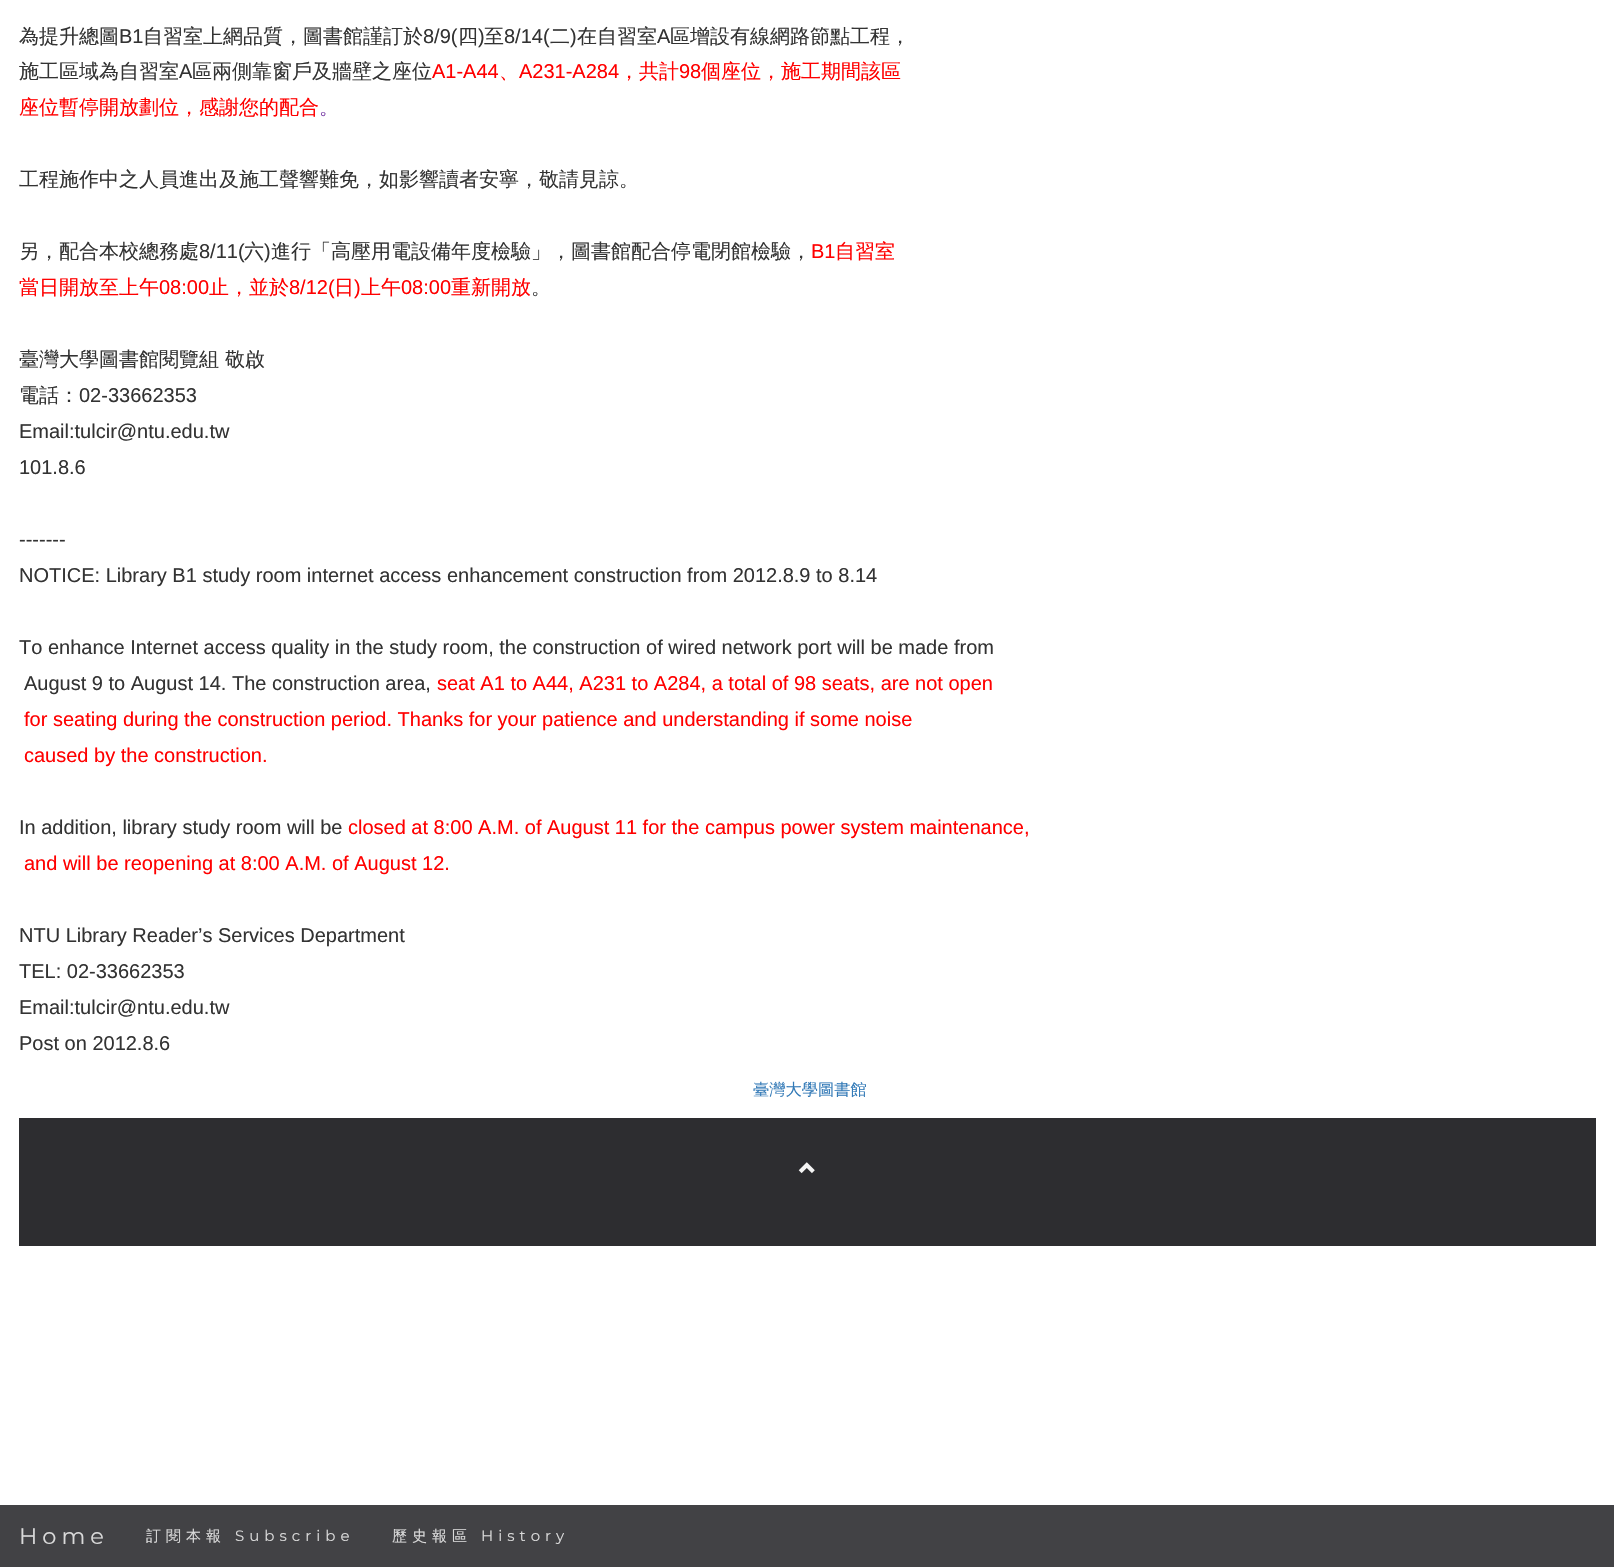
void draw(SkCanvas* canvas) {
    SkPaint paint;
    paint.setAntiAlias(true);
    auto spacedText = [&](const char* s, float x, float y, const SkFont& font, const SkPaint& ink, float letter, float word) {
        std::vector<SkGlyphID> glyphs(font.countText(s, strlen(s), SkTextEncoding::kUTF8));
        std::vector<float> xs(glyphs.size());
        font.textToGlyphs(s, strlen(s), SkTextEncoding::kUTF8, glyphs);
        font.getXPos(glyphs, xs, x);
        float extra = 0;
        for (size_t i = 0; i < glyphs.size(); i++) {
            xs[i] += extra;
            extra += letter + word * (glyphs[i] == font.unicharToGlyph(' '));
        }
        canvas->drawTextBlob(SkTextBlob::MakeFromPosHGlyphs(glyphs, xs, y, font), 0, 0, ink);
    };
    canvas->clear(0xFFFFFFFF);
    SkFont font1(fontMgr->matchFamilyStyle("WenQuanYi Zen Hei", SkFontStyle(500, SkFontStyle::kNormal_Width, SkFontStyle::kUpright_Slant)), 20);
    font1.setSubpixel(true);
    paint.setColor(0xFF333333);
    canvas->drawString("為提升總圖", 19, 43, font1, paint);
    SkFont font2(fontMgr->matchFamilyStyle("Liberation Sans", SkFontStyle::Normal()), 20);
    font2.setSubpixel(true);
    canvas->drawString("B1", 119, 43, font2, paint);
    canvas->drawString("自習室上網品質，圖書館謹訂於", 143, 43, font1, paint);
    canvas->drawString("8/9(", 423, 43, font2, paint);
    canvas->drawString("四", 458, 43, font1, paint);
    canvas->drawString(")", 478, 43, font2, paint);
    canvas->drawString("至", 484, 43, font1, paint);
    canvas->drawString("8/14(", 504, 43, font2, paint);
    canvas->drawString("二", 550, 43, font1, paint);
    canvas->drawString(")", 570, 43, font2, paint);
    canvas->drawString("在自習室", 577, 43, font1, paint);
    canvas->drawString("A", 657, 43, font2, paint);
    canvas->drawString("區增設有線網路節點工程，", 670, 43, font1, paint);
    canvas->drawString("施工區域為自習室", 19, 78, font1, paint);
    canvas->drawString("A", 179, 78, font2, paint);
    canvas->drawString("區兩側靠窗戶及牆壁之座位", 192, 78, font1, paint);
    paint.setColor(0xFFFF0000);
    canvas->drawString("A1-A44", 432, 78, font2, paint);
    canvas->drawString("、", 499, 78, font1, paint);
    canvas->drawString("A231-A284", 519, 78, font2, paint);
    canvas->drawString("，共計", 619, 78, font1, paint);
    canvas->drawString("98", 679, 78, font2, paint);
    canvas->drawString("個座位，施工期間該區", 701, 78, font1, paint);
    canvas->drawString("座位暫停開放劃位，感謝您的配合", 19, 114, font1, paint);
    paint.setColor(0xFF7030A0);
    canvas->drawString("。", 319, 114, font1, paint);
    paint.setColor(0xFF333333);
    canvas->drawString("工程施作中之人員進出及施工聲響難免，如影響讀者安寧，敬請見諒。", 19, 186, font1, paint);
    canvas->drawString("另，配合本校總務處", 19, 258, font1, paint);
    canvas->drawString("8/11(", 199, 258, font2, paint);
    canvas->drawString("六", 244, 258, font1, paint);
    canvas->drawString(")", 264, 258, font2, paint);
    canvas->drawString("進行「高壓用電設備年度檢驗」，圖書館配合停電閉館檢驗，", 271, 258, font1, paint);
    paint.setColor(0xFFFF0000);
    canvas->drawString("B1", 811, 258, font2, paint);
    canvas->drawString("自習室", 835, 258, font1, paint);
    canvas->drawString("當日開放至上午", 19, 294, font1, paint);
    canvas->drawString("08:00", 159, 294, font2, paint);
    canvas->drawString("止，並於", 209, 294, font1, paint);
    canvas->drawString("8/12(", 289, 294, font2, paint);
    canvas->drawString("日", 334, 294, font1, paint);
    canvas->drawString(")", 354, 294, font2, paint);
    canvas->drawString("上午", 361, 294, font1, paint);
    canvas->drawString("08:00", 401, 294, font2, paint);
    canvas->drawString("重新開放", 451, 294, font1, paint);
    paint.setColor(0xFF333333);
    canvas->drawString("。", 531, 294, font1, paint);
    canvas->drawString("臺灣大學圖書館閱覽組 敬啟", 19, 366, font1, paint);
    canvas->drawString("電話：", 19, 402, font1, paint);
    canvas->drawString("02-33662353", 79, 402, font2, paint);
    canvas->drawString("Email:tulcir@ntu.edu.tw", 19, 438, font2, paint);
    canvas->drawString("101.8.6", 19, 474, font2, paint);
    canvas->drawString("-------", 19, 546, font2, paint);
    canvas->drawString("NOTICE: Library B1 study room internet access enhancement construction from 2012.8.9 to 8.14", 19, 582, font2, paint);
    canvas->drawString("To enhance Internet access quality in the study room, the construction of wired network port will be made from", 19, 654, font2, paint);
    canvas->drawString("August 9 to August 14. The construction area,", 24, 690, font2, paint);
    paint.setColor(0xFFFF0000);
    canvas->drawString("seat A1 to A44, A231 to A284, a total of 98 seats, are not open", 437, 690, font2, paint);
    canvas->drawString("for seating during the construction period. Thanks for your patience and understanding if some noise", 24, 726, font2, paint);
    canvas->drawString("caused by the construction.", 24, 762, font2, paint);
    paint.setColor(0xFF333333);
    canvas->drawString("In addition, library study room will be", 19, 834, font2, paint);
    paint.setColor(0xFFFF0000);
    canvas->drawString("closed at 8:00 A.M. of August 11 for the campus power system maintenance,", 348, 834, font2, paint);
    canvas->drawString("and will be reopening at 8:00 A.M. of August 12.", 24, 870, font2, paint);
    paint.setColor(0xFF333333);
    canvas->drawString("NTU Library Reader’s Services Department", 19, 942, font2, paint);
    canvas->drawString("TEL: 02-33662353", 19, 978, font2, paint);
    canvas->drawString("Email:tulcir@ntu.edu.tw", 19, 1014, font2, paint);
    canvas->drawString("Post on 2012.8.6", 19, 1050, font2, paint);
    SkFont font3(fontMgr->matchFamilyStyle("WenQuanYi Zen Hei", SkFontStyle(500, SkFontStyle::kNormal_Width, SkFontStyle::kUpright_Slant)), 16.25f);
    font3.setSubpixel(true);
    paint.setColor(0xFF337AB7);
    canvas->drawString("臺灣大學圖書館", 753, 1095, font3, paint);
    paint.setColor(0xFF2D2D30);
    canvas->drawRect(SkRect::MakeXYWH(19, 1118, 1577, 128), paint);
    canvas->drawImageRect(SkImages::DeferredFromEncodedData(SkData::MakeFromFileName("img1.png")), SkRect::MakeXYWH(798, 1162, 17, 12), SkSamplingOptions());
    paint.setColor(0xFF424245);
    canvas->drawRect(SkRect::MakeXYWH(0, 1505, 1614, 62), paint);
    SkFont font4(fontMgr->matchFamilyStyle("Montserrat", SkFontStyle::Normal()), 22.5f);
    font4.setSubpixel(true);
    paint.setColor(0xFFD9D9D9);
    spacedText("Home", 19, 1544, font4, paint, 5, 0);
    SkFont font5(fontMgr->matchFamilyStyle("WenQuanYi Zen Hei", SkFontStyle(500, SkFontStyle::kNormal_Width, SkFontStyle::kUpright_Slant)), 15);
    font5.setSubpixel(true);
    spacedText("訂閱本報", 146, 1541, font5, paint, 5, 0);
    SkFont font6(fontMgr->matchFamilyStyle("Montserrat", SkFontStyle::Normal()), 15);
    font6.setSubpixel(true);
    spacedText("Subscribe", 235, 1541, font6, paint, 5, 0);
    spacedText("歷史報區", 392, 1541, font5, paint, 5, 0);
    spacedText("History", 481, 1541, font6, paint, 5, 0);
}
